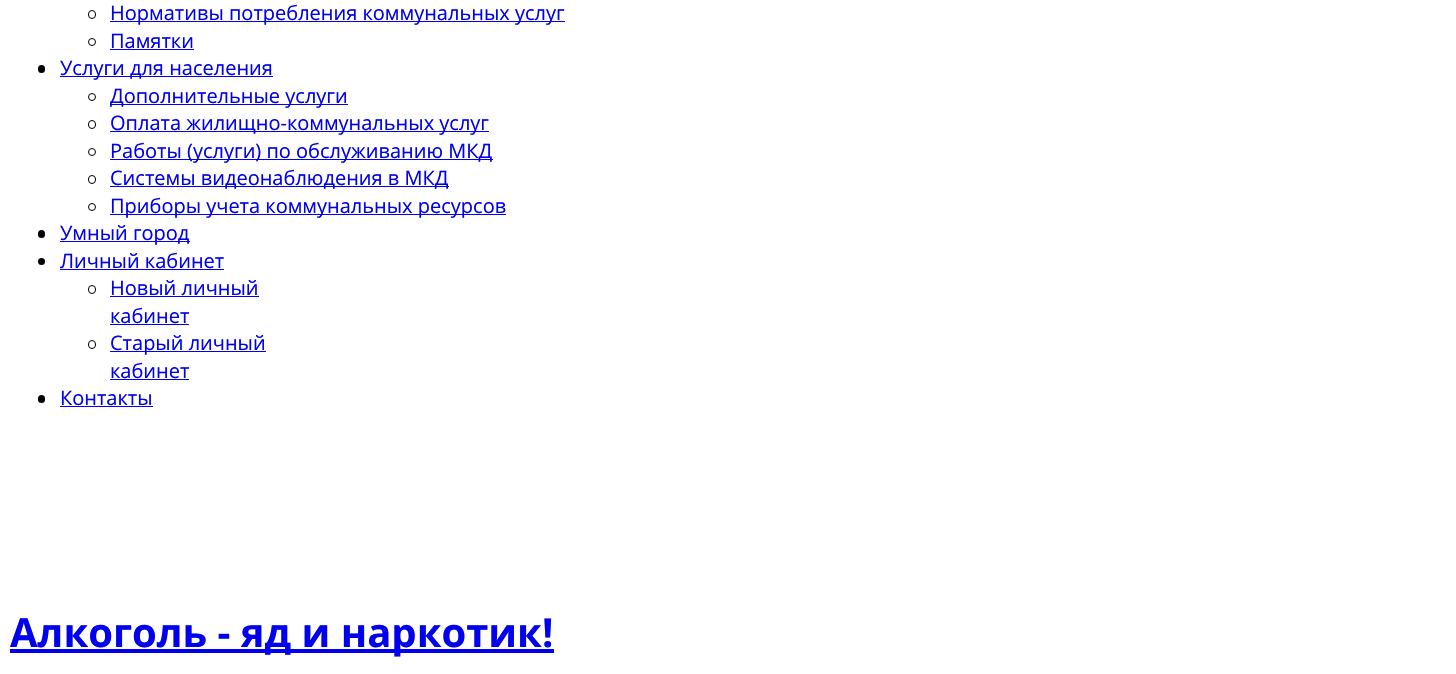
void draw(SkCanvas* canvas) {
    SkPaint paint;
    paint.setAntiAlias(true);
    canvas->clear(0xFFFFFFFF);
    paint.setStyle(SkPaint::kStroke_Style);
    paint.setStrokeWidth(1);
    paint.setColor(0xFF000000);
    canvas->drawRoundRect(SkRect::MakeXYWH(88.5f, 10.5f, 7, 8), 3.5f, 3.5f, paint);
    paint.setStyle(SkPaint::kFill_Style);
    paint.setColor(0xFF0000EE);
    canvas->drawRect(SkRect::MakeXYWH(110, 21, 455, 1), paint);
    SkFont font1(fontMgr->matchFamilyStyle("Open Sans", SkFontStyle::Normal()), 20);
    font1.setSubpixel(true);
    canvas->drawString("Нормативы потребления коммунальных услуг", 110, 20, font1, paint);
    paint.setStyle(SkPaint::kStroke_Style);
    paint.setColor(0xFF000000);
    canvas->drawCircle(92, 42, 3.5f, paint);
    paint.setStyle(SkPaint::kFill_Style);
    paint.setColor(0xFF0000EE);
    canvas->drawString("Памятки", 110, 48, font1, paint);
    canvas->drawRect(SkRect::MakeXYWH(110, 49, 84, 1), paint);
    paint.setColor(0xFF000000);
    canvas->drawRoundRect(SkRect::MakeXYWH(38, 65, 7, 8), 3.5f, 3.5f, paint);
    paint.setColor(0xFF0000EE);
    canvas->drawRect(SkRect::MakeXYWH(60, 76, 213, 1), paint);
    canvas->drawString("Услуги для населения", 60, 75, font1, paint);
    paint.setStyle(SkPaint::kStroke_Style);
    paint.setColor(0xFF000000);
    canvas->drawCircle(92, 97, 3.5f, paint);
    paint.setStyle(SkPaint::kFill_Style);
    paint.setColor(0xFF0000EE);
    canvas->drawRect(SkRect::MakeXYWH(110, 104, 238, 1), paint);
    canvas->drawString("Дополнительные услуги", 110, 103, font1, paint);
    paint.setStyle(SkPaint::kStroke_Style);
    paint.setColor(0xFF000000);
    canvas->drawRoundRect(SkRect::MakeXYWH(88.5f, 120.5f, 7, 8), 3.5f, 3.5f, paint);
    paint.setStyle(SkPaint::kFill_Style);
    paint.setColor(0xFF0000EE);
    canvas->drawRect(SkRect::MakeXYWH(110, 131, 379, 1), paint);
    canvas->drawString("Оплата жилищно-коммунальных услуг", 110, 130, font1, paint);
    paint.setStyle(SkPaint::kStroke_Style);
    paint.setColor(0xFF000000);
    canvas->drawCircle(92, 152, 3.5f, paint);
    paint.setStyle(SkPaint::kFill_Style);
    paint.setColor(0xFF0000EE);
    canvas->drawRect(SkRect::MakeXYWH(110, 159, 383, 1), paint);
    canvas->drawString("Работы (услуги) по обслуживанию МКД", 110, 158, font1, paint);
    paint.setStyle(SkPaint::kStroke_Style);
    paint.setColor(0xFF000000);
    canvas->drawRoundRect(SkRect::MakeXYWH(88.5f, 175.5f, 7, 8), 3.5f, 3.5f, paint);
    paint.setStyle(SkPaint::kFill_Style);
    paint.setColor(0xFF0000EE);
    canvas->drawRect(SkRect::MakeXYWH(110, 186, 339, 1), paint);
    canvas->drawString("Системы видеонаблюдения в МКД", 110, 185, font1, paint);
    paint.setStyle(SkPaint::kStroke_Style);
    paint.setColor(0xFF000000);
    canvas->drawCircle(92, 207, 3.5f, paint);
    paint.setStyle(SkPaint::kFill_Style);
    paint.setColor(0xFF0000EE);
    canvas->drawRect(SkRect::MakeXYWH(110, 214, 396, 1), paint);
    canvas->drawString("Приборы учета коммунальных ресурсов", 110, 213, font1, paint);
    paint.setColor(0xFF000000);
    canvas->drawRoundRect(SkRect::MakeXYWH(38, 230, 7, 8), 3.5f, 3.5f, paint);
    paint.setColor(0xFF0000EE);
    canvas->drawRect(SkRect::MakeXYWH(60, 241, 130, 1), paint);
    canvas->drawString("Умный город", 60, 240, font1, paint);
    paint.setColor(0xFF000000);
    canvas->drawCircle(41.5f, 261.5f, 3.5f, paint);
    paint.setColor(0xFF0000EE);
    canvas->drawString("Личный кабинет", 60, 268, font1, paint);
    canvas->drawRect(SkRect::MakeXYWH(60, 269, 164, 1), paint);
    paint.setStyle(SkPaint::kStroke_Style);
    paint.setColor(0xFF000000);
    canvas->drawRoundRect(SkRect::MakeXYWH(88.5f, 285.5f, 7, 8), 3.5f, 3.5f, paint);
    paint.setStyle(SkPaint::kFill_Style);
    paint.setColor(0xFF0000EE);
    canvas->drawString("Новый личный", 110, 295, font1, paint);
    canvas->drawRect(SkRect::MakeXYWH(110, 296, 149, 1), paint);
    canvas->drawString("кабинет", 110, 323, font1, paint);
    canvas->drawRect(SkRect::MakeXYWH(110, 324, 79, 1), paint);
    paint.setStyle(SkPaint::kStroke_Style);
    paint.setColor(0xFF000000);
    canvas->drawRoundRect(SkRect::MakeXYWH(88.5f, 340.5f, 7, 8), 3.5f, 3.5f, paint);
    paint.setStyle(SkPaint::kFill_Style);
    paint.setColor(0xFF0000EE);
    canvas->drawRect(SkRect::MakeXYWH(110, 351, 156, 1), paint);
    canvas->drawString("Старый личный", 110, 350, font1, paint);
    canvas->drawString("кабинет", 110, 378, font1, paint);
    canvas->drawRect(SkRect::MakeXYWH(110, 379, 79, 1), paint);
    paint.setColor(0xFF000000);
    canvas->drawRoundRect(SkRect::MakeXYWH(38, 395, 7, 8), 3.5f, 3.5f, paint);
    paint.setColor(0xFF0000EE);
    canvas->drawString("Контакты", 60, 405, font1, paint);
    canvas->drawRect(SkRect::MakeXYWH(60, 406, 93, 1), paint);
    canvas->drawRect(SkRect::MakeXYWH(10, 649, 544, 4), paint);
    SkFont font2(fontMgr->matchFamilyStyle("Open Sans", SkFontStyle::Bold()), 40);
    font2.setSubpixel(true);
    canvas->drawString("Алкоголь - яд и наркотик!", 10, 647, font2, paint);
}
